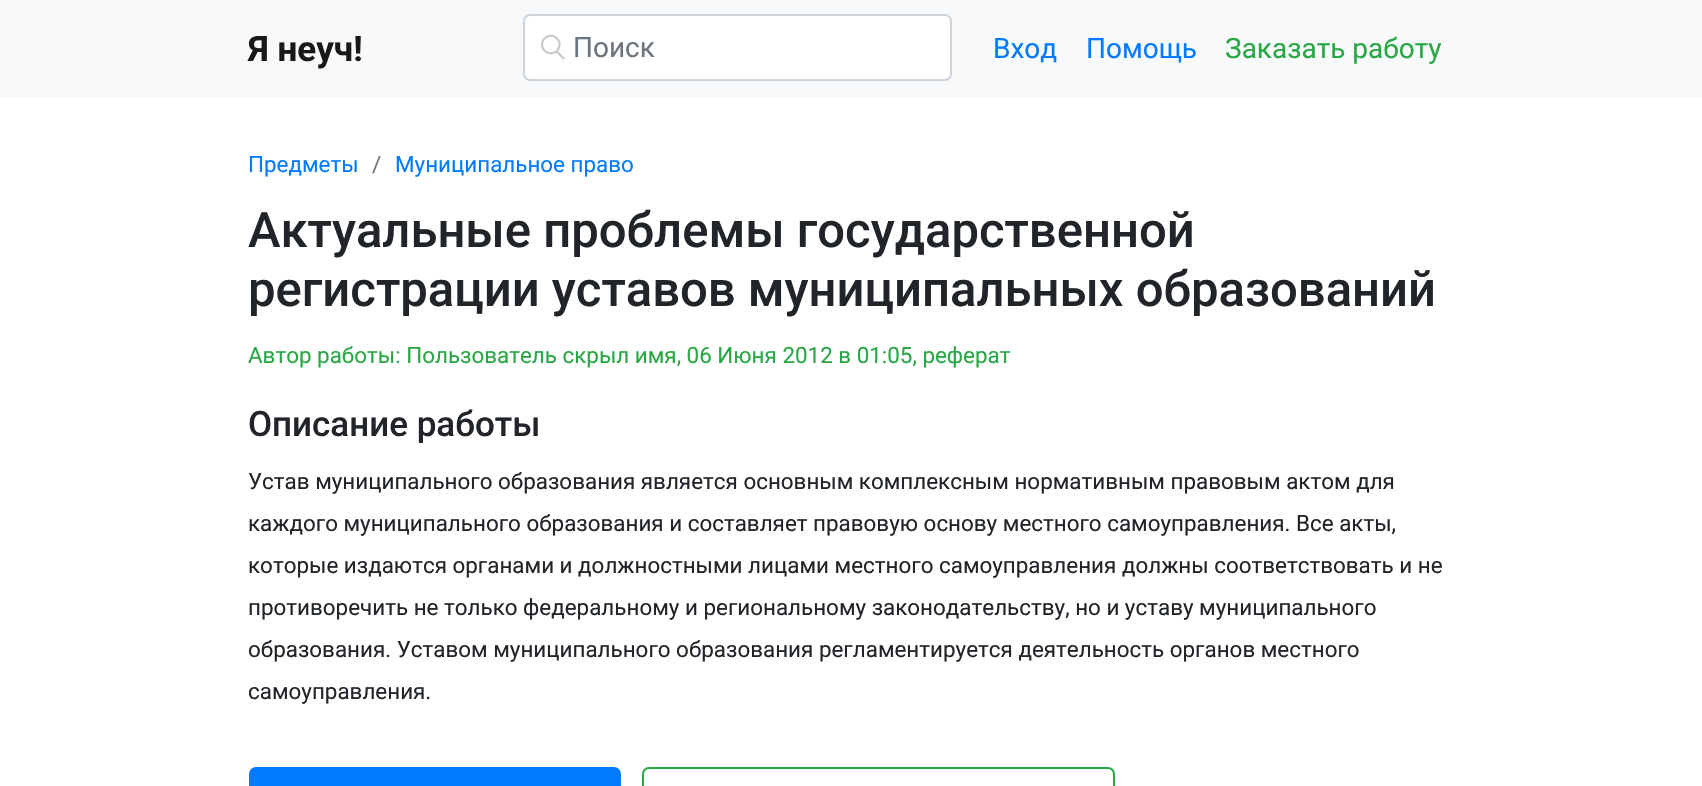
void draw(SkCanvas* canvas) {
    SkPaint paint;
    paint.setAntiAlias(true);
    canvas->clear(0xFFFFFFFF);
    paint.setColor(0xFFF8F9FA);
    canvas->drawRect(SkRect::MakeXYWH(0, 0, 1702, 98), paint);
    SkFont font1(fontMgr->matchFamilyStyle("Roboto", SkFontStyle::Bold()), 35);
    font1.setSubpixel(true);
    paint.setColor(0xFF191919);
    canvas->drawString("Я неуч!", 248, 61, font1, paint);
    paint.setColor(0xFFFFFFFF);
    canvas->drawRoundRect(SkRect::MakeXYWH(525, 16, 425, 63), 5, 5, paint);
    canvas->drawImageRect(SkImages::DeferredFromEncodedData(SkData::MakeFromFileName("img1.png")), SkRect::MakeXYWH(541, 34, 24, 26), SkSamplingOptions());
    paint.setStyle(SkPaint::kStroke_Style);
    paint.setStrokeWidth(2);
    paint.setColor(0xFFCED4DA);
    canvas->drawRoundRect(SkRect::MakeXYWH(524, 15, 427, 65), 6, 6, paint);
    SkFont font2(fontMgr->matchFamilyStyle("Roboto", SkFontStyle::Normal()), 28);
    font2.setSubpixel(true);
    paint.setStyle(SkPaint::kFill_Style);
    paint.setColor(0xFF6C757D);
    canvas->drawString("Поиск", 573, 57, font2, paint);
    paint.setColor(0xFF007BFF);
    canvas->drawString("Вход", 993, 58, font2, paint);
    canvas->drawString("Помощь", 1086, 58, font2, paint);
    paint.setColor(0xFF28A745);
    canvas->drawString("Заказать работу", 1225, 58, font2, paint);
    SkFont font3(fontMgr->matchFamilyStyle("Roboto", SkFontStyle::Normal()), 22.4f);
    font3.setSubpixel(true);
    paint.setColor(0xFF007BFF);
    canvas->drawString("Предметы", 248, 172, font3, paint);
    paint.setColor(0xFF6C757D);
    canvas->drawString("/", 372, 172, font3, paint);
    paint.setColor(0xFF007BFF);
    canvas->drawString("Муниципальное право", 395, 172, font3, paint);
    SkFont font4(fontMgr->matchFamilyStyle("Roboto", SkFontStyle(500, SkFontStyle::kNormal_Width, SkFontStyle::kUpright_Slant)), 49);
    font4.setSubpixel(true);
    paint.setColor(0xFF212529);
    canvas->drawString("Актуальные проблемы государственной", 248, 247, font4, paint);
    canvas->drawString("регистрации уставов муниципальных образований", 248, 306, font4, paint);
    paint.setColor(0xFF28A745);
    canvas->drawString("Автор работы: Пользователь скрыл имя, 06 Июня 2012 в 01:05, реферат", 248, 363, font3, paint);
    SkFont font5(fontMgr->matchFamilyStyle("Roboto", SkFontStyle(500, SkFontStyle::kNormal_Width, SkFontStyle::kUpright_Slant)), 35);
    font5.setSubpixel(true);
    paint.setColor(0xFF212529);
    canvas->drawString("Описание работы", 248, 436, font5, paint);
    canvas->drawString("Устав муниципального образования является основным комплексным нормативным правовым актом для", 248, 489, font3, paint);
    canvas->drawString("каждого муниципального образования и составляет правовую основу местного самоуправления. Все акты,", 248, 531, font3, paint);
    canvas->drawString("которые издаются органами и должностными лицами местного самоуправления должны соответствовать и не", 248, 573, font3, paint);
    canvas->drawString("противоречить не только федеральному и региональному законодательству, но и уставу муниципального", 248, 615, font3, paint);
    canvas->save();
    canvas->clipRect(SkRect::MakeXYWH(249, 459, 1207, 280));
    canvas->drawString("образования. Уставом муниципального образования регламентируется деятельность органов местного", 248, 657, font3, paint);
    canvas->drawString("самоуправления.", 248, 699, font3, paint);
    canvas->restore();
    paint.setColor(0xFF007BFF);
    canvas->drawRoundRect(SkRect::MakeXYWH(250, 768, 370, 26), 6, 6, paint);
    paint.setStyle(SkPaint::kStroke_Style);
    canvas->drawRoundRect(SkRect::MakeXYWH(250, 768, 370, 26), 6, 6, paint);
    paint.setColor(0xFF28A745);
    canvas->drawRoundRect(SkRect::MakeXYWH(643, 768, 471, 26), 6, 6, paint);
}
